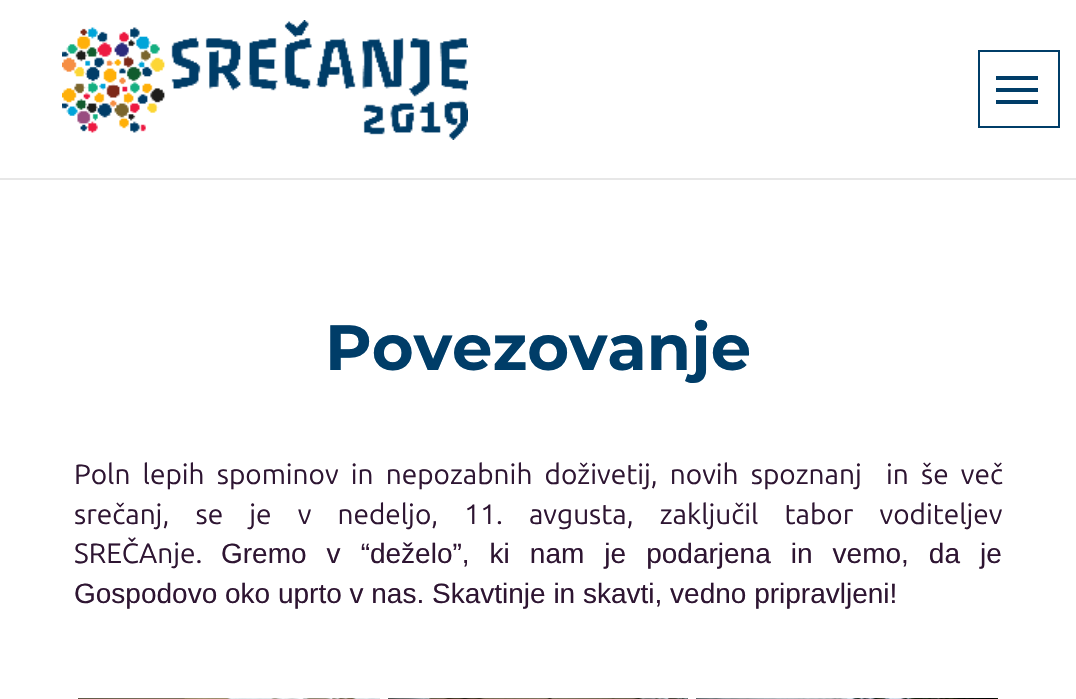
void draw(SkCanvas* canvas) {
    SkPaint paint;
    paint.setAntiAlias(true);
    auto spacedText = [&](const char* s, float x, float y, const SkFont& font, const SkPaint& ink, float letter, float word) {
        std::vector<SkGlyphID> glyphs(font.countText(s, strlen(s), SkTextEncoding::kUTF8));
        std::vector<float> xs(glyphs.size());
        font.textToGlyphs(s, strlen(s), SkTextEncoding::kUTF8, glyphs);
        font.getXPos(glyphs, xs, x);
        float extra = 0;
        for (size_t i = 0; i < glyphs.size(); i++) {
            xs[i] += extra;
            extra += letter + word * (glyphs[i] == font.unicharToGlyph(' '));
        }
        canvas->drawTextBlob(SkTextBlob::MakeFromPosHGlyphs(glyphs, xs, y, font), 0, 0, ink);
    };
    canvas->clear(0xFFFFFFFF);
    paint.setColor(0xFFE7E7E7);
    canvas->drawRect(SkRect::MakeXYWH(0, 178, 1076, 2), paint);
    canvas->drawImageRect(SkImages::DeferredFromEncodedData(SkData::MakeFromFileName("img1.png")), SkRect::MakeXYWH(62, 20, 406, 120), SkSamplingOptions());
    paint.setStyle(SkPaint::kStroke_Style);
    paint.setStrokeWidth(2);
    paint.setColor(0xFF003D68);
    canvas->drawRect(SkRect::MakeXYWH(979, 51, 80, 76), paint);
    paint.setStyle(SkPaint::kFill_Style);
    canvas->drawRect(SkRect::MakeXYWH(996, 76, 42, 4), paint);
    canvas->drawRect(SkRect::MakeXYWH(996, 88, 42, 4), paint);
    canvas->drawRect(SkRect::MakeXYWH(996, 100, 42, 4), paint);
    SkFont font1(fontMgr->matchFamilyStyle("Montserrat", SkFontStyle::Bold()), 64);
    font1.setSubpixel(true);
    canvas->drawString("Povezovanje", 325, 370, font1, paint);
    SkFont font2(fontMgr->matchFamilyStyle("Ubuntu", SkFontStyle::Normal()), 28);
    font2.setSubpixel(true);
    paint.setColor(0xFF2E1532);
    spacedText("Poln lepih spominov in nepozabnih doživetij, novih spoznanj  in še več", 74, 484, font2, paint, 0, 5.75f);
    spacedText("srečanj, se je v nedeljo, 11. avgusta, zaključil tabor voditeljev", 74, 524, font2, paint, 0, 19.75f);
    canvas->drawString("SREČAnje.", 74, 563, font2, paint);
    SkFont font3(fontMgr->matchFamilyStyle("Liberation Sans", SkFontStyle::Normal()), 28);
    font3.setSubpixel(true);
    spacedText("Gremo v “deželo”, ki nam je podarjena in vemo, da je", 221, 563, font3, paint, 0, 12.25f);
    canvas->drawString("Gospodovo oko uprto v nas. Skavtinje in skavti, vedno pripravljeni!", 74, 603, font3, paint);
    canvas->drawImageRect(SkImages::DeferredFromEncodedData(SkData::MakeFromFileName("img2.png")), SkRect::MakeXYWH(78, 698, 302, 1), SkSamplingOptions());
    canvas->drawImageRect(SkImages::DeferredFromEncodedData(SkData::MakeFromFileName("img3.png")), SkRect::MakeXYWH(388, 698, 300, 1), SkSamplingOptions());
    canvas->drawImageRect(SkImages::DeferredFromEncodedData(SkData::MakeFromFileName("img4.png")), SkRect::MakeXYWH(696, 698, 302, 1), SkSamplingOptions());
}
